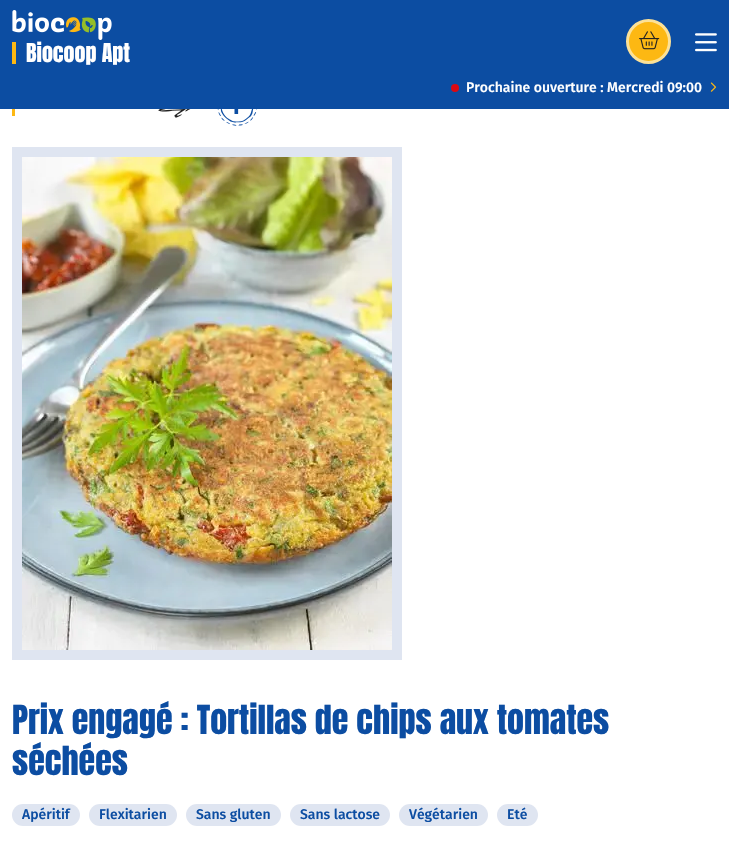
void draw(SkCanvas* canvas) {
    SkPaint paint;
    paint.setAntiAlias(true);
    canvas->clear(0xFFFFFFFF);
    paint.setColor(0xFF0C4DA2);
    canvas->drawRect(SkRect::MakeXYWH(0, 0, 729, 109), paint);
    canvas->drawImageRect(SkImages::DeferredFromEncodedData(SkData::MakeFromFileName("img1.png")), SkRect::MakeXYWH(12, 10, 100, 30), SkSamplingOptions());
    paint.setColor(0xFFFDB813);
    canvas->drawRect(SkRect::MakeXYWH(12, 42, 4, 22), paint);
    SkFont font1(fontMgr->matchFamilyStyle("Anton", SkFontStyle::Normal()), 22);
    font1.setSubpixel(true);
    paint.setColor(0xFFFFFFFF);
    canvas->drawString("Biocoop Apt", 26, 62, font1, paint);
    paint.setColor(0xFFFDB813);
    canvas->drawCircle(648.5f, 41.5f, 21, paint);
    paint.setStyle(SkPaint::kStroke_Style);
    paint.setStrokeWidth(3);
    paint.setColor(0xFFFCE197);
    canvas->drawCircle(648.5f, 41.5f, 21, paint);
    canvas->drawImageRect(SkImages::DeferredFromEncodedData(SkData::MakeFromFileName("img2.png")), SkRect::MakeXYWH(639, 31, 21, 19), SkSamplingOptions());
    canvas->drawImageRect(SkImages::DeferredFromEncodedData(SkData::MakeFromFileName("img3.png")), SkRect::MakeXYWH(695, 33, 22, 19), SkSamplingOptions());
    paint.setStyle(SkPaint::kFill_Style);
    paint.setColor(0xFFDA0812);
    canvas->drawCircle(455, 88, 4, paint);
    SkFont font2(fontMgr->matchFamilyStyle("Fira Sans", SkFontStyle(500, SkFontStyle::kNormal_Width, SkFontStyle::kUpright_Slant)), 14);
    font2.setSubpixel(true);
    paint.setColor(0xFFFFFFFF);
    canvas->drawString("Prochaine ouverture : Mercredi 09:00", 466, 92, font2, paint);
    canvas->drawImageRect(SkImages::DeferredFromEncodedData(SkData::MakeFromFileName("img4.png")), SkRect::MakeXYWH(710, 82, 7, 10), SkSamplingOptions());
    paint.setColor(0xFFFDB813);
    canvas->drawRect(SkRect::MakeXYWH(12, 109, 3, 7), paint);
    canvas->drawImageRect(SkImages::DeferredFromEncodedData(SkData::MakeFromFileName("img5.png")), SkRect::MakeXYWH(158, 109, 33, 9), SkSamplingOptions());
    canvas->drawImageRect(SkImages::DeferredFromEncodedData(SkData::MakeFromFileName("img6.png")), SkRect::MakeXYWH(217, 109, 40, 17), SkSamplingOptions());
    canvas->drawImageRect(SkImages::DeferredFromEncodedData(SkData::MakeFromFileName("img7.png")), SkRect::MakeXYWH(234, 109, 5, 5), SkSamplingOptions());
    paint.setStyle(SkPaint::kStroke_Style);
    paint.setStrokeWidth(10);
    paint.setColor(0xFFDFE5F1);
    canvas->drawRect(SkRect::MakeXYWH(17, 152, 380, 503), paint);
    canvas->drawImageRect(SkImages::DeferredFromEncodedData(SkData::MakeFromFileName("img8.png")), SkRect::MakeXYWH(22, 157, 370, 493), SkSamplingOptions());
    SkFont font3(fontMgr->matchFamilyStyle("Anton", SkFontStyle::Normal()), 34);
    font3.setSubpixel(true);
    paint.setStyle(SkPaint::kFill_Style);
    paint.setColor(0xFF0C4DA2);
    canvas->drawString("Prix engagé : Tortillas de chips aux tomates", 12, 734, font3, paint);
    canvas->drawString("séchées", 12, 775, font3, paint);
    paint.setColor(0xFFDFE5F1);
    canvas->drawRoundRect(SkRect::MakeXYWH(12, 804, 68, 22), 11, 11, paint);
    paint.setColor(0xFF0C4DA2);
    canvas->drawString("Apéritif", 22, 819, font2, paint);
    paint.setColor(0xFFDFE5F1);
    canvas->drawRoundRect(SkRect::MakeXYWH(89, 804, 88, 22), 11, 11, paint);
    paint.setColor(0xFF0C4DA2);
    canvas->drawString("Flexitarien", 99, 819, font2, paint);
    paint.setColor(0xFFDFE5F1);
    canvas->drawRoundRect(SkRect::MakeXYWH(186, 804, 95, 22), 11, 11, paint);
    paint.setColor(0xFF0C4DA2);
    canvas->drawString("Sans gluten", 196, 819, font2, paint);
    paint.setColor(0xFFDFE5F1);
    canvas->drawRoundRect(SkRect::MakeXYWH(290, 804, 100, 22), 11, 11, paint);
    paint.setColor(0xFF0C4DA2);
    canvas->drawString("Sans lactose", 300, 819, font2, paint);
    paint.setColor(0xFFDFE5F1);
    canvas->drawRoundRect(SkRect::MakeXYWH(399, 804, 89, 22), 11, 11, paint);
    paint.setColor(0xFF0C4DA2);
    canvas->drawString("Végétarien", 409, 819, font2, paint);
    paint.setColor(0xFFDFE5F1);
    canvas->drawRoundRect(SkRect::MakeXYWH(497, 804, 41, 22), 11, 11, paint);
    paint.setColor(0xFF0C4DA2);
    canvas->drawString("Eté", 507, 819, font2, paint);
}
